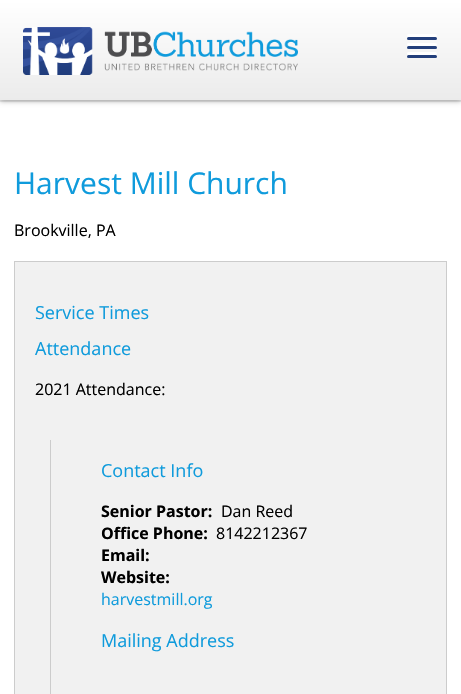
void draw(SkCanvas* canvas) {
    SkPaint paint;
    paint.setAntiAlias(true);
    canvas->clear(0xFFFFFFFF);
    paint.setColor(0xFFECECEC);
    canvas->drawRect(SkRect::MakeXYWH(0, 100, 461, 2), paint);
    paint.setColor(0x59000000);
    paint.setMaskFilter(SkMaskFilter::MakeBlur(kNormal_SkBlurStyle, 2.5f));
    canvas->drawRect(SkRect::MakeXYWH(0, 1, 461, 100), paint);
    paint.setMaskFilter(nullptr);
    {
        const SkColor colors[] = {0xFFFFFFFF, 0xFFEBEBEB};
        const float stops[] = {0, 1};
        const SkPoint ends[] = {{231, 0}, {231, 100}};
        paint.setShader(SkGradientShader::MakeLinear(ends, colors, stops, 2, SkTileMode::kClamp));
        paint.setAlpha(255);
    }
    canvas->drawRect(SkRect::MakeXYWH(0, 0, 461, 100), paint);
    canvas->drawImageRect(SkImages::DeferredFromEncodedData(SkData::MakeFromFileName("img1.png")), SkRect::MakeXYWH(23, 27, 275, 48), SkSamplingOptions());
    paint.setShader(nullptr);
    paint.setColor(0xFF233F7B);
    canvas->drawRoundRect(SkRect::MakeXYWH(407, 37, 30, 3), 1.5f, 1.5f, paint);
    paint.setColor(0xFFFFFFFF);
    canvas->drawRoundRect(SkRect::MakeXYWH(407, 34, 30, 3), 1.5f, 1.5f, paint);
    paint.setColor(0xFF233F7B);
    canvas->drawRoundRect(SkRect::MakeXYWH(407, 46, 30, 3), 1.5f, 1.5f, paint);
    paint.setColor(0xFFFFFFFF);
    canvas->drawRoundRect(SkRect::MakeXYWH(407, 43, 30, 3), 1.5f, 1.5f, paint);
    paint.setColor(0xFF233F7B);
    canvas->drawRoundRect(SkRect::MakeXYWH(407, 55, 30, 3), 1.5f, 1.5f, paint);
    paint.setColor(0xFFFFFFFF);
    canvas->drawRoundRect(SkRect::MakeXYWH(407, 52, 30, 3), 1.5f, 1.5f, paint);
    SkFont font1(fontMgr->matchFamilyStyle("Open Sans", SkFontStyle::Normal()), 30);
    font1.setSubpixel(true);
    paint.setColor(0xFF0F9BDC);
    canvas->drawString("Harvest Mill Church", 14, 194, font1, paint);
    SkFont font2(fontMgr->matchFamilyStyle("Open Sans", SkFontStyle::Normal()), 16);
    font2.setSubpixel(true);
    paint.setColor(0xFF000000);
    canvas->drawString("Brookville, PA", 14, 236, font2, paint);
    paint.setColor(0xFFF1F1F1);
    canvas->drawRect(SkRect::MakeXYWH(14.5f, 261.5f, 432, 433), paint);
    paint.setStyle(SkPaint::kStroke_Style);
    paint.setStrokeWidth(1);
    paint.setColor(0xFFCCCCCC);
    canvas->drawRect(SkRect::MakeXYWH(14.5f, 261.5f, 432, 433), paint);
    SkFont font3(fontMgr->matchFamilyStyle("Open Sans", SkFontStyle::Normal()), 18);
    font3.setSubpixel(true);
    paint.setStyle(SkPaint::kFill_Style);
    paint.setColor(0xFF0F9BDC);
    canvas->drawString("Service Times", 35, 319, font3, paint);
    canvas->drawString("Attendance", 35, 355, font3, paint);
    paint.setColor(0xFF000000);
    canvas->drawString("2021 Attendance:", 35, 395, font2, paint);
    paint.setColor(0xFFCCCCCC);
    canvas->drawRect(SkRect::MakeXYWH(50, 440, 1, 254), paint);
    paint.setColor(0xFF0F9BDC);
    canvas->drawString("Contact Info", 101, 477, font3, paint);
    SkFont font4(fontMgr->matchFamilyStyle("Open Sans", SkFontStyle::Bold()), 16);
    font4.setSubpixel(true);
    paint.setColor(0xFF000000);
    canvas->drawString("Senior Pastor:", 101, 517, font4, paint);
    canvas->drawString("Dan Reed", 221, 517, font2, paint);
    canvas->drawString("Office Phone:", 101, 539, font4, paint);
    canvas->drawString("8142212367", 216, 539, font2, paint);
    canvas->drawString("Email:", 101, 561, font4, paint);
    canvas->drawString("Website:", 101, 583, font4, paint);
    paint.setColor(0xFF0F9BDC);
    canvas->drawString("harvestmill.org", 101, 605, font2, paint);
    canvas->drawString("Mailing Address", 101, 647, font3, paint);
}
